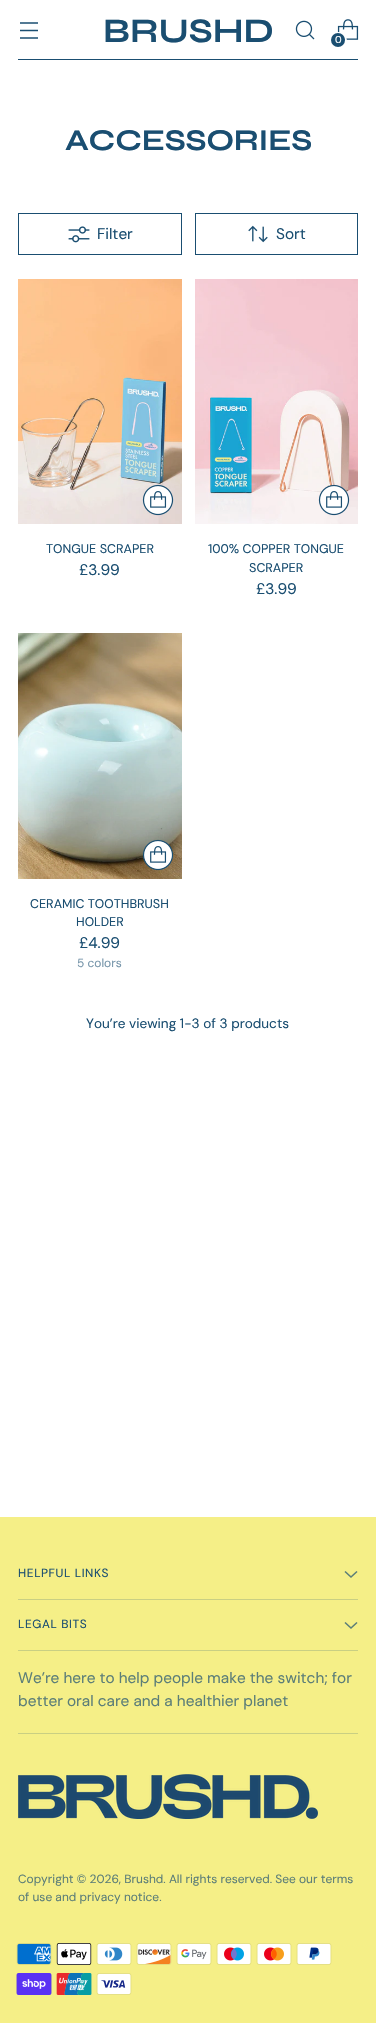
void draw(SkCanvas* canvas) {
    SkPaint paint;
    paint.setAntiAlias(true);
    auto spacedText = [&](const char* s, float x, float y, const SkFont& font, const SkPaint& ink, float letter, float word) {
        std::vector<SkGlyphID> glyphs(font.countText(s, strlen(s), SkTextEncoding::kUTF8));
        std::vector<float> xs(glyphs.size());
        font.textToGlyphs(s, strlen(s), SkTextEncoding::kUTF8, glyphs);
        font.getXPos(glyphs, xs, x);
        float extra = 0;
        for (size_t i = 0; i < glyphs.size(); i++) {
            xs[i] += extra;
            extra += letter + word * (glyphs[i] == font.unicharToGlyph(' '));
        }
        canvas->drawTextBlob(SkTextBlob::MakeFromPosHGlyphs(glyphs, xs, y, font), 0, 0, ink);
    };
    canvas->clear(0xFFFFFFFF);
    paint.setColor(0xFF1A4E71);
    canvas->drawRect(SkRect::MakeXYWH(18, 59, 340, 1), paint);
    paint.setStyle(SkPaint::kStroke_Style);
    paint.setStrokeWidth(1.3f);
    canvas->drawPath(SkPathBuilder().moveTo(20, 30.5f).lineTo(38, 30.5f).moveTo(20, 23).lineTo(38, 23).moveTo(20, 38).lineTo(38, 38).detach(), paint);
    SkFont font1(fontMgr->matchFamilyStyle("Syne", SkFontStyle::Bold()), 34.5f);
    font1.setSubpixel(true);
    paint.setStyle(SkPaint::kFill_Style);
    canvas->drawString("BRUSHD", 103, 42, font1, paint);
    canvas->drawImageRect(SkImages::DeferredFromEncodedData(SkData::MakeFromFileName("img1.png")), SkRect::MakeXYWH(295, 20, 20, 20), SkSamplingOptions());
    canvas->drawImageRect(SkImages::DeferredFromEncodedData(SkData::MakeFromFileName("img2.png")), SkRect::MakeXYWH(337, 19, 22, 21), SkSamplingOptions());
    paint.setStyle(SkPaint::kStroke_Style);
    paint.setStrokeWidth(2);
    paint.setColor(0xFFFFFFFF);
    canvas->drawCircle(338.5f, 40.5f, 7.5f, paint);
    paint.setStyle(SkPaint::kFill_Style);
    paint.setColor(0xFF1A4E71);
    canvas->drawCircle(338, 40, 7, paint);
    SkFont font2(fontMgr->matchFamilyStyle("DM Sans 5", SkFontStyle::Normal()), 10);
    font2.setSubpixel(true);
    paint.setColor(0xFFFFFFFF);
    canvas->drawString("0", 335, 43, font2, paint);
    SkFont font3(fontMgr->matchFamilyStyle("Syne", SkFontStyle::Bold()), 30.25f);
    font3.setSubpixel(true);
    paint.setColor(0xFF1A4E71);
    spacedText("ACCESSORIES", 65, 150, font3, paint, -0.25f, 0);
    paint.setStyle(SkPaint::kStroke_Style);
    paint.setStrokeWidth(1);
    canvas->drawRect(SkRect::MakeXYWH(18.5f, 213.5f, 163, 41), paint);
    canvas->drawImageRect(SkImages::DeferredFromEncodedData(SkData::MakeFromFileName("img3.png")), SkRect::MakeXYWH(68, 226, 22, 17), SkSamplingOptions());
    SkFont font4(fontMgr->matchFamilyStyle("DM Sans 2", SkFontStyle::Normal()), 15.4f);
    font4.setSubpixel(true);
    paint.setStyle(SkPaint::kFill_Style);
    canvas->drawString("Filter", 97, 239, font4, paint);
    paint.setStyle(SkPaint::kStroke_Style);
    canvas->drawRect(SkRect::MakeXYWH(195.5f, 213.5f, 162, 41), paint);
    canvas->drawImageRect(SkImages::DeferredFromEncodedData(SkData::MakeFromFileName("img4.png")), SkRect::MakeXYWH(248, 225, 20, 18), SkSamplingOptions());
    paint.setStyle(SkPaint::kFill_Style);
    canvas->drawString("Sort", 276, 239, font4, paint);
    canvas->drawImageRect(SkImages::DeferredFromEncodedData(SkData::MakeFromFileName("img5.png")), SkRect::MakeXYWH(18, 279, 164, 245), SkSamplingOptions());
    canvas->drawImageRect(SkImages::DeferredFromEncodedData(SkData::MakeFromFileName("img6.png")), SkRect::MakeXYWH(142, 484, 32, 32), SkSamplingOptions());
    SkFont font5(fontMgr->matchFamilyStyle("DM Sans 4", SkFontStyle::Normal()), 12.6f);
    font5.setSubpixel(true);
    canvas->drawString("TONGUE SCRAPER", 46, 553, font5, paint);
    canvas->drawString("£3.99", 79, 575, font4, paint);
    canvas->drawImageRect(SkImages::DeferredFromEncodedData(SkData::MakeFromFileName("img7.png")), SkRect::MakeXYWH(195, 279, 163, 245), SkSamplingOptions());
    canvas->drawImageRect(SkImages::DeferredFromEncodedData(SkData::MakeFromFileName("img8.png")), SkRect::MakeXYWH(318, 484, 32, 32), SkSamplingOptions());
    canvas->drawString("100% COPPER TONGUE", 208, 553, font5, paint);
    canvas->drawString("SCRAPER", 249, 572, font5, paint);
    canvas->drawString("£3.99", 256, 594, font4, paint);
    canvas->drawImageRect(SkImages::DeferredFromEncodedData(SkData::MakeFromFileName("img9.png")), SkRect::MakeXYWH(18, 633, 164, 246), SkSamplingOptions());
    canvas->drawImageRect(SkImages::DeferredFromEncodedData(SkData::MakeFromFileName("img10.png")), SkRect::MakeXYWH(142, 839, 32, 32), SkSamplingOptions());
    canvas->drawString("CERAMIC TOOTHBRUSH", 30, 908, font5, paint);
    canvas->drawString("HOLDER", 76, 926, font5, paint);
    canvas->drawString("£4.99", 79, 948, font4, paint);
    SkFont font6(fontMgr->matchFamilyStyle("DM Sans", SkFontStyle::Normal()), 11.95f);
    font6.setSubpixel(true);
    paint.setColor(0xFF7695AA);
    canvas->drawString("5 colors", 77, 967, font6, paint);
    SkFont font7(fontMgr->matchFamilyStyle("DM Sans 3", SkFontStyle::Normal()), 13.6f);
    font7.setSubpixel(true);
    paint.setColor(0xFF1A4E71);
    canvas->drawString("You’re viewing 1-3 of 3 products", 86, 1028, font7, paint);
    paint.setColor(0xFFF5EF87);
    canvas->drawRect(SkRect::MakeXYWH(0, 1517, 376, 506), paint);
    paint.setColor(0xFFC9CF83);
    canvas->drawRect(SkRect::MakeXYWH(18, 1599, 340, 1), paint);
    paint.setColor(0xFF1A4E71);
    spacedText("HELPFUL LINKS", 18, 1577, font6, paint, 0.6f, 0);
    paint.setStyle(SkPaint::kStroke_Style);
    paint.setStrokeWidth(1.6f);
    paint.setColor(0xFF5C7E78);
    canvas->drawPath(SkPathBuilder().moveTo(345, 1571.5f).lineTo(351, 1577).lineTo(357, 1571.5f).moveTo(345, 1622.5f).lineTo(351, 1628).lineTo(357, 1622.5f).detach(), paint);
    paint.setStyle(SkPaint::kFill_Style);
    paint.setColor(0xFFC9CF83);
    canvas->drawRect(SkRect::MakeXYWH(18, 1650, 340, 1), paint);
    paint.setColor(0xFF1A4E71);
    spacedText("LEGAL BITS", 18, 1628, font6, paint, 0.6f, 0);
    paint.setColor(0xFFC9CF83);
    canvas->drawRect(SkRect::MakeXYWH(18, 1733, 340, 1), paint);
    paint.setColor(0xFF5C7E78);
    canvas->drawString("We’re here to help people make the switch; for", 18, 1683, font4, paint);
    canvas->drawString("better oral care and a healthier planet", 18, 1706, font4, paint);
    canvas->drawImageRect(SkImages::DeferredFromEncodedData(SkData::MakeFromFileName("img11.png")), SkRect::MakeXYWH(18, 1774, 300, 45), SkSamplingOptions());
    canvas->drawString("Copyright © 2026, Brushd. All rights reserved. See our terms", 18, 1883, font6, paint);
    canvas->drawString("of use and privacy notice.", 18, 1901, font6, paint);
    canvas->drawImageRect(SkImages::DeferredFromEncodedData(SkData::MakeFromFileName("img12.png")), SkRect::MakeXYWH(16, 1943, 36, 22), SkSamplingOptions());
    canvas->drawImageRect(SkImages::DeferredFromEncodedData(SkData::MakeFromFileName("img13.png")), SkRect::MakeXYWH(56, 1943, 36, 22), SkSamplingOptions());
    canvas->drawImageRect(SkImages::DeferredFromEncodedData(SkData::MakeFromFileName("img14.png")), SkRect::MakeXYWH(96, 1943, 36, 22), SkSamplingOptions());
    canvas->drawImageRect(SkImages::DeferredFromEncodedData(SkData::MakeFromFileName("img15.png")), SkRect::MakeXYWH(136, 1943, 36, 22), SkSamplingOptions());
    canvas->drawImageRect(SkImages::DeferredFromEncodedData(SkData::MakeFromFileName("img16.png")), SkRect::MakeXYWH(176, 1943, 36, 22), SkSamplingOptions());
    canvas->drawImageRect(SkImages::DeferredFromEncodedData(SkData::MakeFromFileName("img17.png")), SkRect::MakeXYWH(216, 1943, 36, 22), SkSamplingOptions());
    canvas->drawImageRect(SkImages::DeferredFromEncodedData(SkData::MakeFromFileName("img18.png")), SkRect::MakeXYWH(256, 1943, 36, 22), SkSamplingOptions());
    canvas->drawImageRect(SkImages::DeferredFromEncodedData(SkData::MakeFromFileName("img19.png")), SkRect::MakeXYWH(296, 1943, 36, 22), SkSamplingOptions());
    canvas->drawImageRect(SkImages::DeferredFromEncodedData(SkData::MakeFromFileName("img20.png")), SkRect::MakeXYWH(16, 1973, 36, 22), SkSamplingOptions());
    canvas->drawImageRect(SkImages::DeferredFromEncodedData(SkData::MakeFromFileName("img21.png")), SkRect::MakeXYWH(56, 1973, 36, 22), SkSamplingOptions());
    canvas->drawImageRect(SkImages::DeferredFromEncodedData(SkData::MakeFromFileName("img22.png")), SkRect::MakeXYWH(96, 1973, 36, 22), SkSamplingOptions());
}
